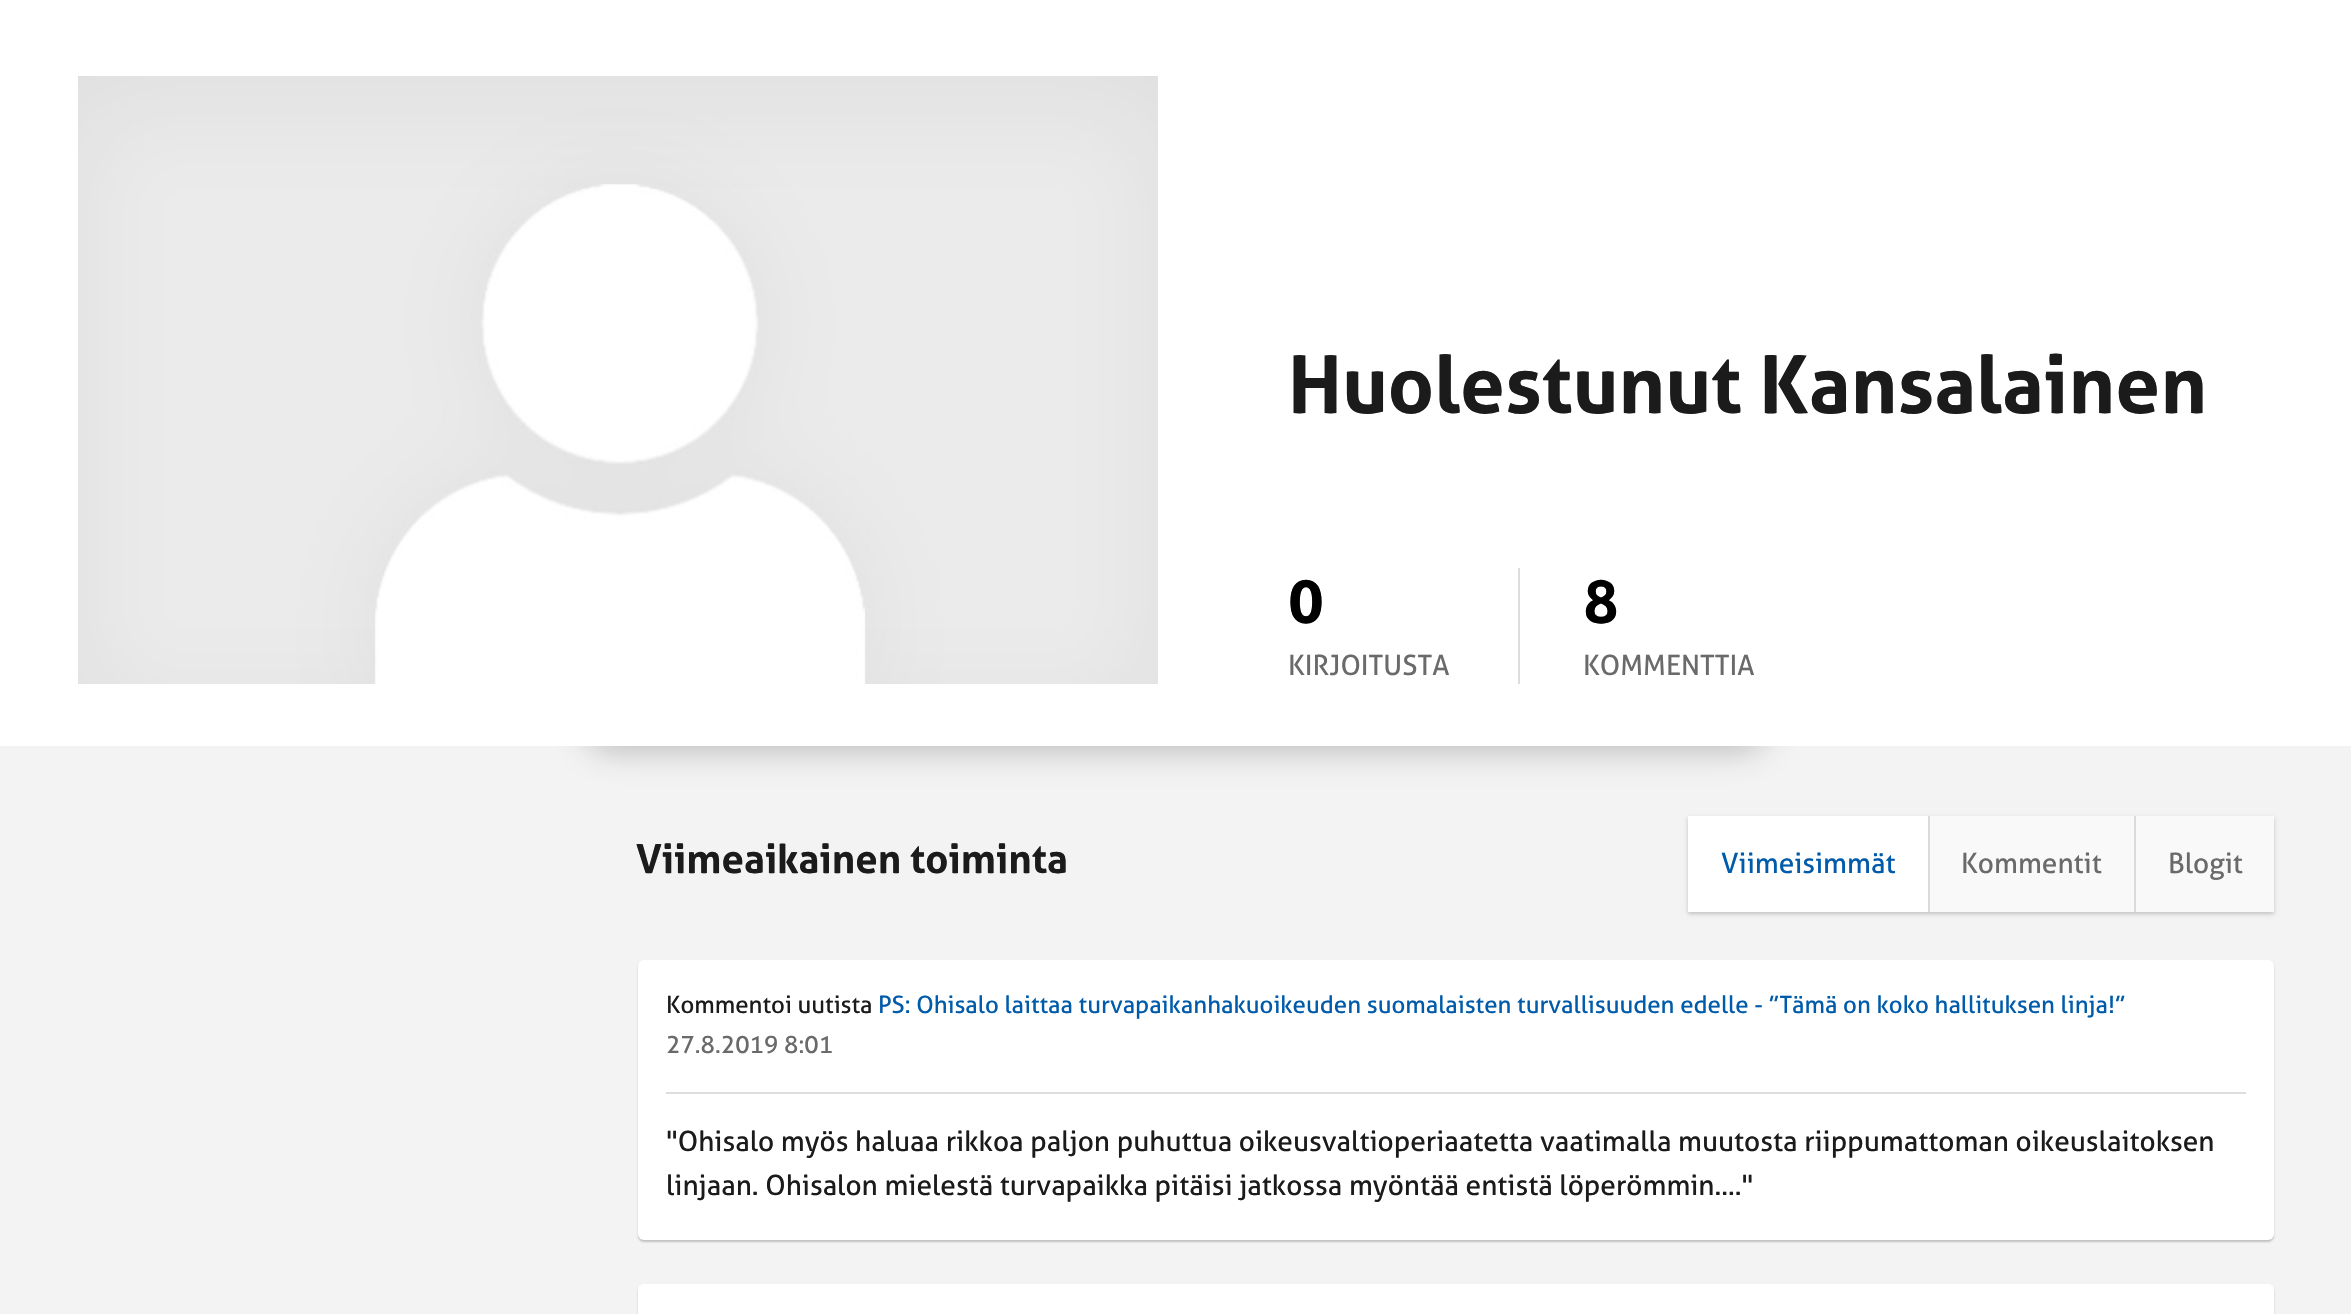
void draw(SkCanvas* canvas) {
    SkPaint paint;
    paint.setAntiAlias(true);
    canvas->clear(0xFFF3F3F3);
    paint.setColor(0x807F7F7F);
    paint.setMaskFilter(SkMaskFilter::MakeBlur(kNormal_SkBlurStyle, 17));
    canvas->drawRoundRect(SkRect::MakeXYWH(584, 696, 1184, 54), 27, 27, paint);
    paint.setMaskFilter(nullptr);
    paint.setColor(0xFFFFFFFF);
    canvas->drawRect(SkRect::MakeXYWH(0, 0, 2351, 746), paint);
    canvas->drawImageRect(SkImages::DeferredFromEncodedData(SkData::MakeFromFileName("img1.png")), SkRect::MakeXYWH(78, 76, 1080, 608), SkSamplingOptions());
    SkFont font1(fontMgr->matchFamilyStyle("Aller", SkFontStyle::Bold()), 80);
    font1.setSubpixel(true);
    paint.setColor(0xFF1B1B1B);
    canvas->drawString("Huolestunut Kansalainen", 1288, 413, font1, paint);
    SkFont font2(fontMgr->matchFamilyStyle("Aller", SkFontStyle::Bold()), 60);
    font2.setSubpixel(true);
    paint.setColor(0xFF000000);
    canvas->drawString("0", 1288, 623, font2, paint);
    SkFont font3(fontMgr->matchFamilyStyle("Aller", SkFontStyle::Normal()), 28);
    font3.setSubpixel(true);
    paint.setColor(0xFF6A6A6A);
    canvas->drawString("KIRJOITUSTA", 1288, 675, font3, paint);
    paint.setColor(0xFFDDDDDD);
    canvas->drawRect(SkRect::MakeXYWH(1518, 568, 2, 116), paint);
    paint.setColor(0xFF000000);
    canvas->drawString("8", 1583, 623, font2, paint);
    paint.setColor(0xFF6A6A6A);
    canvas->drawString("KOMMENTTIA", 1583, 675, font3, paint);
    SkFont font4(fontMgr->matchFamilyStyle("Aller", SkFontStyle::Bold()), 40);
    font4.setSubpixel(true);
    paint.setColor(0xFF1B1B1B);
    canvas->drawString("Viimeaikainen toiminta", 636, 873, font4, paint);
    paint.setColor(0x33000000);
    paint.setMaskFilter(SkMaskFilter::MakeBlur(kNormal_SkBlurStyle, 2));
    canvas->drawRect(SkRect::MakeXYWH(1688, 818, 586, 96), paint);
    paint.setMaskFilter(nullptr);
    paint.setColor(0xFFFFFFFF);
    canvas->drawRect(SkRect::MakeXYWH(1688, 816, 240, 96), paint);
    paint.setColor(0xFFDBDBDB);
    canvas->drawRect(SkRect::MakeXYWH(1928, 816, 2, 96), paint);
    paint.setColor(0xFF005BAA);
    canvas->drawString("Viimeisimmät", 1721, 873, font3, paint);
    paint.setColor(0xFFF9F9F9);
    canvas->drawRect(SkRect::MakeXYWH(1930, 816, 204, 96), paint);
    paint.setColor(0xFFDBDBDB);
    canvas->drawRect(SkRect::MakeXYWH(2134, 816, 2, 96), paint);
    paint.setColor(0xFF6A6A6A);
    canvas->drawString("Kommentit", 1961, 873, font3, paint);
    paint.setColor(0xFFF9F9F9);
    canvas->drawRect(SkRect::MakeXYWH(2136, 816, 138, 96), paint);
    paint.setColor(0xFF6A6A6A);
    canvas->drawString("Blogit", 2168, 873, font3, paint);
    paint.setColor(0x33000000);
    paint.setMaskFilter(SkMaskFilter::MakeBlur(kNormal_SkBlurStyle, 1));
    canvas->drawRoundRect(SkRect::MakeXYWH(638, 962, 1636, 280), 6, 6, paint);
    paint.setMaskFilter(nullptr);
    paint.setColor(0xFFFFFFFF);
    canvas->drawRoundRect(SkRect::MakeXYWH(638, 960, 1636, 280), 6, 6, paint);
    SkFont font5(fontMgr->matchFamilyStyle("Aller", SkFontStyle::Normal()), 24);
    font5.setSubpixel(true);
    paint.setColor(0xFF1B1B1B);
    canvas->drawString("Kommentoi uutista", 666, 1013, font5, paint);
    paint.setColor(0xFF005BAA);
    canvas->drawString("PS: Ohisalo laittaa turvapaikanhakuoikeuden suomalaisten turvallisuuden edelle - ”Tämä on koko hallituksen linja!”", 878, 1013, font5, paint);
    paint.setColor(0xFF6A6A6A);
    canvas->drawString("27.8.2019 8:01", 666, 1053, font5, paint);
    paint.setColor(0xFFDDDDDD);
    canvas->drawRect(SkRect::MakeXYWH(666, 1092, 1580, 2), paint);
    paint.setColor(0xFF1B1B1B);
    canvas->drawString("\"Ohisalo myös haluaa rikkoa paljon puhuttua oikeusvaltioperiaatetta vaatimalla muutosta riippumattoman oikeuslaitoksen", 666, 1151, font3, paint);
    canvas->drawString("linjaan. Ohisalon mielestä turvapaikka pitäisi jatkossa myöntää entistä löperömmin....\"", 666, 1195, font3, paint);
    paint.setColor(0x33000000);
    paint.setMaskFilter(SkMaskFilter::MakeBlur(kNormal_SkBlurStyle, 1));
    canvas->drawRoundRect(SkRect::MakeXYWH(638, 1286, 1636, 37), 6, 6, paint);
    paint.setMaskFilter(nullptr);
    paint.setColor(0xFFFFFFFF);
    canvas->drawRoundRect(SkRect::MakeXYWH(638, 1284, 1636, 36), 6, 6, paint);
}
